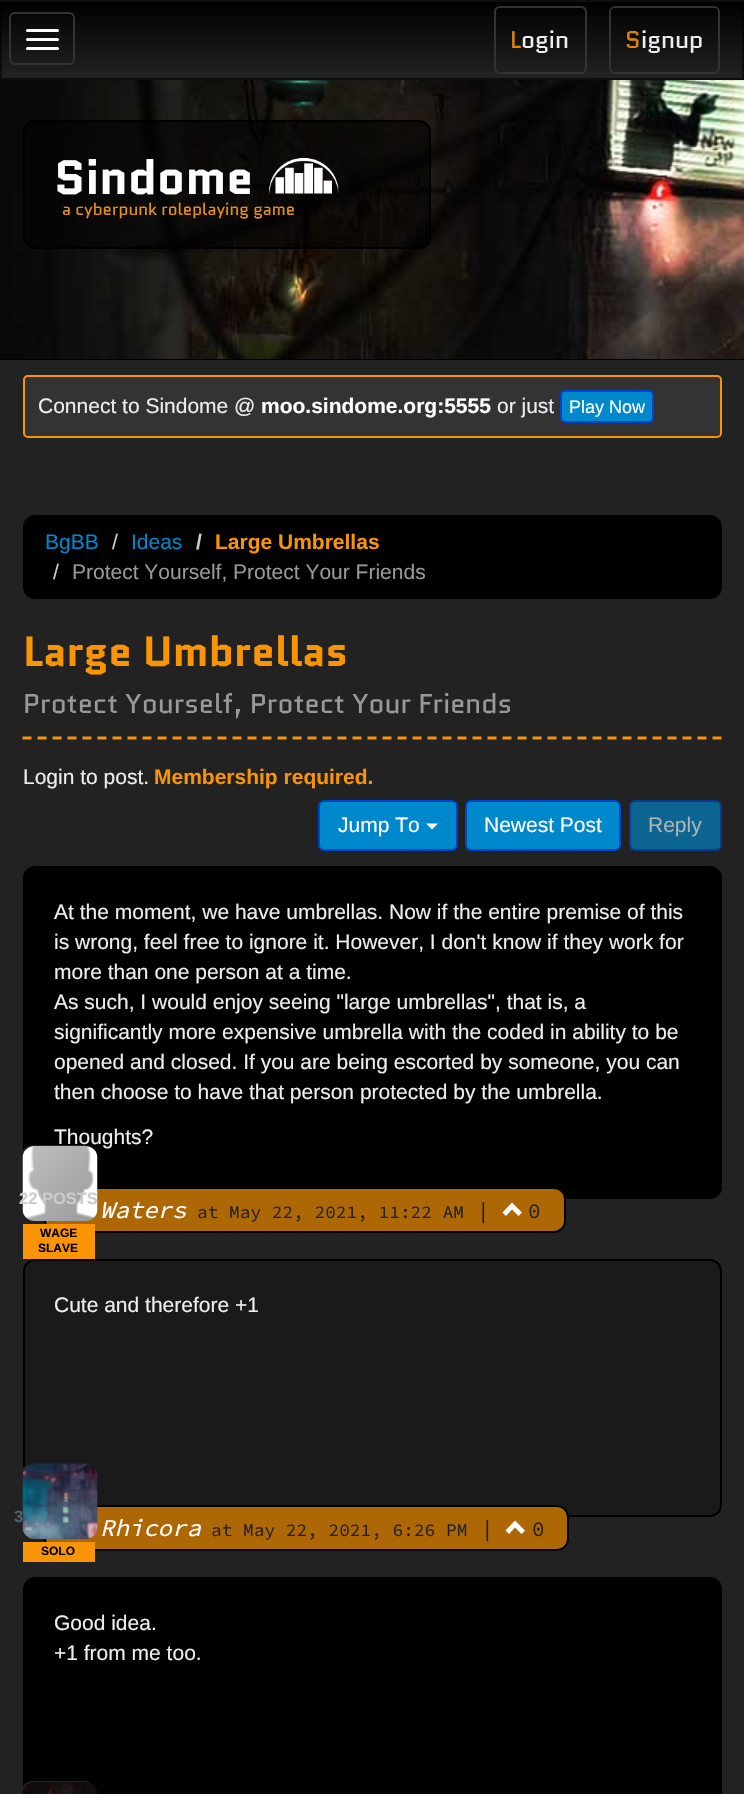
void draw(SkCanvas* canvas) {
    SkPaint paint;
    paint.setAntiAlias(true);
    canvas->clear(0xFFFFFFFF);
    paint.setColor(0xFF222222);
    canvas->drawRect(SkRect::MakeXYWH(0, 0, 744, 80), paint);
    {
        const SkColor colors[] = {0xFF000000, 0xFF222222};
        const float stops[] = {0, 1};
        const SkPoint ends[] = {{372, 1.5f}, {372, 78}};
        paint.setShader(SkGradientShader::MakeLinear(ends, colors, stops, 2, SkTileMode::kClamp));
        paint.setAlpha(255);
    }
    canvas->drawRect(SkRect::MakeXYWH(0, 2, 744, 70), paint);
    paint.setStyle(SkPaint::kStroke_Style);
    paint.setStrokeWidth(2);
    paint.setShader(nullptr);
    paint.setColor(0x99000000);
    canvas->drawRect(SkRect::MakeXYWH(1, 1, 742, 78), paint);
    paint.setColor(0xFF333333);
    canvas->drawRoundRect(SkRect::MakeXYWH(10, 13, 64, 51), 5, 5, paint);
    paint.setStyle(SkPaint::kFill_Style);
    paint.setColor(0xFFFFFFFF);
    canvas->drawRoundRect(SkRect::MakeXYWH(26, 29, 33, 3), 1.5f, 1.5f, paint);
    canvas->drawRoundRect(SkRect::MakeXYWH(26, 38, 33, 3), 1.5f, 1.5f, paint);
    canvas->drawRoundRect(SkRect::MakeXYWH(26, 47, 33, 3), 1.5f, 1.5f, paint);
    paint.setStyle(SkPaint::kStroke_Style);
    paint.setColor(0xFF333333);
    canvas->drawRoundRect(SkRect::MakeXYWH(495, 7, 91, 66), 5, 5, paint);
    SkFont font1(fontMgr->matchFamilyStyle("Quantico", SkFontStyle::Normal()), 24);
    font1.setSubpixel(true);
    paint.setStyle(SkPaint::kFill_Style);
    paint.setColor(0xFFDF8505);
    canvas->drawString("L", 510, 48, font1, paint);
    paint.setColor(0xFFEEEEEE);
    canvas->drawString("ogin", 521, 48, font1, paint);
    paint.setStyle(SkPaint::kStroke_Style);
    paint.setColor(0xFF333333);
    canvas->drawRoundRect(SkRect::MakeXYWH(610, 7, 109, 66), 5, 5, paint);
    paint.setStyle(SkPaint::kFill_Style);
    paint.setColor(0xFFDF8505);
    canvas->drawString("S", 625, 48, font1, paint);
    paint.setColor(0xFFEEEEEE);
    canvas->drawString("ignup", 641, 48, font1, paint);
    canvas->drawImageRect(SkImages::DeferredFromEncodedData(SkData::MakeFromFileName("img1.png")), SkRect::MakeXYWH(0, 80, 744, 279), SkSamplingOptions());
    paint.setColor(0xFF000000);
    canvas->drawRect(SkRect::MakeXYWH(0, 359, 744, 1), paint);
    paint.setColor(0x99000000);
    canvas->drawRoundRect(SkRect::MakeXYWH(24, 121, 406, 127), 11, 11, paint);
    paint.setStyle(SkPaint::kStroke_Style);
    paint.setColor(0xFF000000);
    canvas->drawRoundRect(SkRect::MakeXYWH(24, 121, 406, 127), 11, 11, paint);
    SkFont font2(fontMgr->matchFamilyStyle("Quantico", SkFontStyle::Bold()), 48);
    font2.setSubpixel(true);
    paint.setStyle(SkPaint::kFill_Style);
    paint.setColor(0xFFFFFFFF);
    canvas->drawString("Sindome", 54, 194, font2, paint);
    canvas->drawImageRect(SkImages::DeferredFromEncodedData(SkData::MakeFromFileName("img2.png")), SkRect::MakeXYWH(269, 158, 70, 36), SkSamplingOptions());
    SkFont font3(fontMgr->matchFamilyStyle("Quantico", SkFontStyle::Normal()), 16.75f);
    font3.setSubpixel(true);
    paint.setColor(0xFFE59119);
    canvas->drawString("a cyberpunk roleplaying game", 62, 215, font3, paint);
    paint.setColor(0xFF222222);
    canvas->drawRect(SkRect::MakeXYWH(0, 360, 744, 1434), paint);
    paint.setColor(0xFF333333);
    canvas->drawRoundRect(SkRect::MakeXYWH(23, 375, 699, 63), 5, 5, paint);
    paint.setColor(0xFF303030);
    canvas->drawPath(SkPathBuilder().moveTo(27, 378).lineTo(717, 378).cubicTo(719, 378, 720, 379, 720, 381).cubicTo(720, 379, 719, 377, 717, 377).lineTo(27, 377).cubicTo(25, 377, 24, 379, 24, 381).cubicTo(24, 379, 25, 378, 27, 378).close().detach(), paint);
    paint.setStyle(SkPaint::kStroke_Style);
    paint.setColor(0xFFF89406);
    canvas->drawRoundRect(SkRect::MakeXYWH(24, 376, 697, 61), 4, 4, paint);
    SkFont font4(fontMgr->matchFamilyStyle("Liberation Sans", SkFontStyle::Normal()), 21);
    font4.setSubpixel(true);
    paint.setStyle(SkPaint::kFill_Style);
    paint.setColor(0xFFEEEEEE);
    canvas->drawString("Connect to Sindome @", 38, 413, font4, paint);
    SkFont font5(fontMgr->matchFamilyStyle("Liberation Sans", SkFontStyle::Bold()), 21);
    font5.setSubpixel(true);
    paint.setColor(0xFFFFFFFF);
    canvas->drawString("moo.sindome.org:5555", 261, 413, font5, paint);
    paint.setColor(0xFFEEEEEE);
    canvas->drawString("or just", 497, 413, font4, paint);
    paint.setColor(0xFF0088CC);
    canvas->drawRoundRect(SkRect::MakeXYWH(561, 391, 92, 31), 4, 4, paint);
    paint.setStyle(SkPaint::kStroke_Style);
    paint.setColor(0xFF0044CC);
    canvas->drawRoundRect(SkRect::MakeXYWH(561, 391, 92, 31), 4, 4, paint);
    SkFont font6(fontMgr->matchFamilyStyle("Liberation Sans", SkFontStyle::Normal()), 18);
    font6.setSubpixel(true);
    paint.setStyle(SkPaint::kFill_Style);
    paint.setColor(0xFFFFFFFF);
    canvas->drawString("Play Now", 569, 413, font6, paint);
    paint.setColor(0xFF000000);
    canvas->drawRoundRect(SkRect::MakeXYWH(23, 515, 699, 84), 12, 12, paint);
    paint.setColor(0xFF0088CC);
    canvas->drawString("BgBB", 45, 549, font4, paint);
    paint.setColor(0xFFCCCCCC);
    canvas->drawString("/", 112, 549, font4, paint);
    paint.setColor(0xFF0088CC);
    canvas->drawString("Ideas", 131, 549, font4, paint);
    paint.setColor(0xFFCCCCCC);
    canvas->drawString("/", 196, 549, font5, paint);
    paint.setColor(0xFFF89406);
    canvas->drawString("Large Umbrellas", 215, 549, font5, paint);
    paint.setColor(0xFFCCCCCC);
    canvas->drawString("/", 53, 579, font4, paint);
    paint.setColor(0xFF999999);
    canvas->drawString("Protect Yourself, Protect Your Friends", 72, 579, font4, paint);
    SkFont font7(fontMgr->matchFamilyStyle("Quantico", SkFontStyle::Bold()), 42);
    font7.setSubpixel(true);
    paint.setColor(0xFFF89406);
    canvas->drawString("Large Umbrellas", 23, 666, font7, paint);
    SkFont font8(fontMgr->matchFamilyStyle("Quantico", SkFontStyle::Normal()), 27.25f);
    font8.setSubpixel(true);
    paint.setColor(0xFF999999);
    canvas->drawString("Protect Yourself, Protect Your Friends", 23, 713, font8, paint);
    paint.setStyle(SkPaint::kStroke_Style);
    paint.setStrokeWidth(3);
    paint.setColor(0xFFF89406);
    paint.setPathEffect(SkDashPathEffect::Make({{9, 6}}, 0));
    canvas->drawPath(SkPathBuilder().moveTo(22.5f, 738).lineTo(721.5f, 738).detach(), paint);
    paint.setPathEffect(nullptr);
    paint.setStyle(SkPaint::kFill_Style);
    paint.setColor(0xFFEEEEEE);
    canvas->drawString("Login to post.", 23, 784, font4, paint);
    paint.setColor(0xFFF89406);
    canvas->drawString("Membership required.", 154, 784, font5, paint);
    paint.setColor(0xFF0088CC);
    canvas->drawRoundRect(SkRect::MakeXYWH(319, 801, 138, 49), 5, 5, paint);
    paint.setStyle(SkPaint::kStroke_Style);
    paint.setStrokeWidth(2);
    paint.setColor(0xFF0044CC);
    canvas->drawRoundRect(SkRect::MakeXYWH(319, 801, 138, 49), 5, 5, paint);
    paint.setStyle(SkPaint::kFill_Style);
    paint.setColor(0xFFFFFFFF);
    canvas->drawString("Jump To", 338, 832, font4, paint);
    canvas->drawPath(SkPathBuilder().moveTo(426, 823.5f).lineTo(438, 823.5f).lineTo(432, 829.5f).close().detach(), paint);
    paint.setColor(0xFF0088CC);
    canvas->drawRoundRect(SkRect::MakeXYWH(466, 801, 154, 49), 5, 5, paint);
    paint.setStyle(SkPaint::kStroke_Style);
    paint.setColor(0xFF0044CC);
    canvas->drawRoundRect(SkRect::MakeXYWH(466, 801, 154, 49), 5, 5, paint);
    paint.setStyle(SkPaint::kFill_Style);
    paint.setColor(0xFFFFFFFF);
    canvas->drawString("Newest Post", 484, 832, font4, paint);
    paint.setColor(0xFF0C6491);
    canvas->drawRoundRect(SkRect::MakeXYWH(630, 801, 91, 49), 5, 5, paint);
    paint.setStyle(SkPaint::kStroke_Style);
    paint.setColor(0xFF0C3891);
    canvas->drawRoundRect(SkRect::MakeXYWH(630, 801, 91, 49), 5, 5, paint);
    paint.setStyle(SkPaint::kFill_Style);
    paint.setColor(0xFFB2B2B2);
    canvas->drawString("Reply", 648, 832, font4, paint);
    paint.setColor(0xFF000000);
    canvas->drawRoundRect(SkRect::MakeXYWH(24, 867, 697, 331), 11, 11, paint);
    paint.setStyle(SkPaint::kStroke_Style);
    canvas->drawRoundRect(SkRect::MakeXYWH(24, 867, 697, 331), 11, 11, paint);
    paint.setStyle(SkPaint::kFill_Style);
    paint.setColor(0xFFEEEEEE);
    canvas->drawString("At the moment, we have umbrellas. Now if the entire premise of this", 54, 919, font4, paint);
    canvas->drawString("is wrong, feel free to ignore it. However, I don't know if they work for", 54, 949, font4, paint);
    canvas->drawString("more than one person at a time.", 54, 979, font4, paint);
    canvas->drawString("As such, I would enjoy seeing \"large umbrellas\", that is, a", 54, 1009, font4, paint);
    canvas->drawString("significantly more expensive umbrella with the coded in ability to be", 54, 1039, font4, paint);
    canvas->drawString("opened and closed. If you are being escorted by someone, you can", 54, 1069, font4, paint);
    canvas->drawString("then choose to have that person protected by the umbrella.", 54, 1099, font4, paint);
    canvas->drawString("Thoughts?", 54, 1144, font4, paint);
    paint.setColor(0xFFAD6704);
    canvas->drawRoundRect(SkRect::MakeXYWH(45, 1188, 520, 44), 11, 11, paint);
    paint.setStyle(SkPaint::kStroke_Style);
    paint.setColor(0xFF000000);
    canvas->drawRoundRect(SkRect::MakeXYWH(45, 1188, 520, 44), 11, 11, paint);
    paint.setColor(0xFF222222);
    canvas->drawRoundRect(SkRect::MakeXYWH(22, 1146, 73, 73), 11, 11, paint);
    canvas->drawImageRect(SkImages::DeferredFromEncodedData(SkData::MakeFromFileName("img3.png")), SkRect::MakeXYWH(22, 1146, 76, 75), SkSamplingOptions());
    paint.setStyle(SkPaint::kFill_Style);
    paint.setColor(0xFFF89406);
    canvas->drawRect(SkRect::MakeXYWH(23, 1224, 72, 35), paint);
    SkFont font9(fontMgr->matchFamilyStyle("Liberation Sans", SkFontStyle::Bold()), 16.5f);
    font9.setSubpixel(true);
    paint.setColor(0xFFCCCCCC);
    canvas->drawString("22 POSTS", 19, 1204, font9, paint);
    SkFont font10(fontMgr->matchFamilyStyle("Liberation Sans", SkFontStyle::Bold()), 12);
    font10.setSubpixel(true);
    paint.setColor(0xFF000000);
    canvas->drawString("WAGE", 40, 1237, font10, paint);
    canvas->drawString("SLAVE", 38, 1252, font10, paint);
    SkFont font11(fontMgr->matchFamilyStyle("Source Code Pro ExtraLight", SkFontStyle(200, SkFontStyle::kNormal_Width, SkFontStyle::kItalic_Slant)), 24);
    font11.setSubpixel(true);
    paint.setColor(0xFFFFFFFF);
    canvas->drawString("Waters", 100, 1218, font11, paint);
    SkFont font12(fontMgr->matchFamilyStyle("Source Code Pro ExtraLight", SkFontStyle(200, SkFontStyle::kNormal_Width, SkFontStyle::kUpright_Slant)), 17.8f);
    font12.setSubpixel(true);
    paint.setColor(0xFF222222);
    canvas->drawString("at May 22, 2021, 11:22 AM", 197, 1218, font12, paint);
    SkFont font13(fontMgr->matchFamilyStyle("Source Code Pro ExtraLight", SkFontStyle(200, SkFontStyle::kNormal_Width, SkFontStyle::kUpright_Slant)), 21);
    font13.setSubpixel(true);
    canvas->drawString("|", 477, 1218, font13, paint);
    paint.setColor(0xFFFFFFFF);
    canvas->drawPath(SkPathBuilder().moveTo(522, 1212.5f).lineTo(518.5f, 1216).lineTo(512, 1209.5f).lineTo(506, 1216).lineTo(502.5f, 1212.5f).lineTo(512, 1202.5f).close().detach(), paint);
    paint.setColor(0xFF222222);
    canvas->drawString("0", 528, 1218, font13, paint);
    paint.setColor(0xFF1A1A1A);
    canvas->drawRoundRect(SkRect::MakeXYWH(24, 1260, 697, 256), 11, 11, paint);
    paint.setStyle(SkPaint::kStroke_Style);
    paint.setColor(0xFF000000);
    canvas->drawRoundRect(SkRect::MakeXYWH(24, 1260, 697, 256), 11, 11, paint);
    paint.setStyle(SkPaint::kFill_Style);
    paint.setColor(0xFFEEEEEE);
    canvas->drawString("Cute and therefore +1", 54, 1312, font4, paint);
    paint.setColor(0xFFAD6704);
    canvas->drawRoundRect(SkRect::MakeXYWH(45, 1506, 523, 44), 11, 11, paint);
    paint.setStyle(SkPaint::kStroke_Style);
    paint.setColor(0xFF000000);
    canvas->drawRoundRect(SkRect::MakeXYWH(45, 1506, 523, 44), 11, 11, paint);
    paint.setColor(0xFF222222);
    canvas->drawRoundRect(SkRect::MakeXYWH(22, 1464, 73, 73), 11, 11, paint);
    canvas->drawImageRect(SkImages::DeferredFromEncodedData(SkData::MakeFromFileName("img4.png")), SkRect::MakeXYWH(22, 1464, 76, 75), SkSamplingOptions());
    paint.setStyle(SkPaint::kFill_Style);
    paint.setColor(0xFFF89406);
    canvas->drawRect(SkRect::MakeXYWH(23, 1542, 72, 20), paint);
    paint.setColor(0xFF4D616D);
    canvas->drawString("3", 14, 1522, font9, paint);
    paint.setColor(0xFF000000);
    canvas->drawString("SOLO", 41, 1555, font10, paint);
    paint.setColor(0xFFFFFFFF);
    canvas->drawString("Rhicora", 100, 1536, font11, paint);
    paint.setColor(0xFF222222);
    canvas->drawString("at May 22, 2021, 6:26 PM", 211, 1536, font12, paint);
    canvas->drawString("|", 481, 1536, font13, paint);
    paint.setColor(0xFFFFFFFF);
    canvas->drawPath(SkPathBuilder().moveTo(525, 1530.5f).lineTo(521.5f, 1534).lineTo(515, 1527.5f).lineTo(509, 1534).lineTo(505.5f, 1530.5f).lineTo(515, 1520.5f).close().detach(), paint);
    paint.setColor(0xFF222222);
    canvas->drawString("0", 532, 1536, font13, paint);
    paint.setColor(0xFF000000);
    canvas->drawRoundRect(SkRect::MakeXYWH(24, 1578, 697, 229), 11, 11, paint);
    paint.setStyle(SkPaint::kStroke_Style);
    canvas->drawRoundRect(SkRect::MakeXYWH(24, 1578, 697, 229), 11, 11, paint);
    paint.setStyle(SkPaint::kFill_Style);
    paint.setColor(0xFFEEEEEE);
    canvas->drawString("Good idea.", 54, 1630, font4, paint);
    canvas->drawString("+1 from me too.", 54, 1660, font4, paint);
    paint.setStyle(SkPaint::kStroke_Style);
    paint.setColor(0xFF222222);
    canvas->drawRoundRect(SkRect::MakeXYWH(22, 1782, 73, 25), 11, 11, paint);
    canvas->drawImageRect(SkImages::DeferredFromEncodedData(SkData::MakeFromFileName("img5.png")), SkRect::MakeXYWH(22, 1782, 75, 12), SkSamplingOptions());
}
